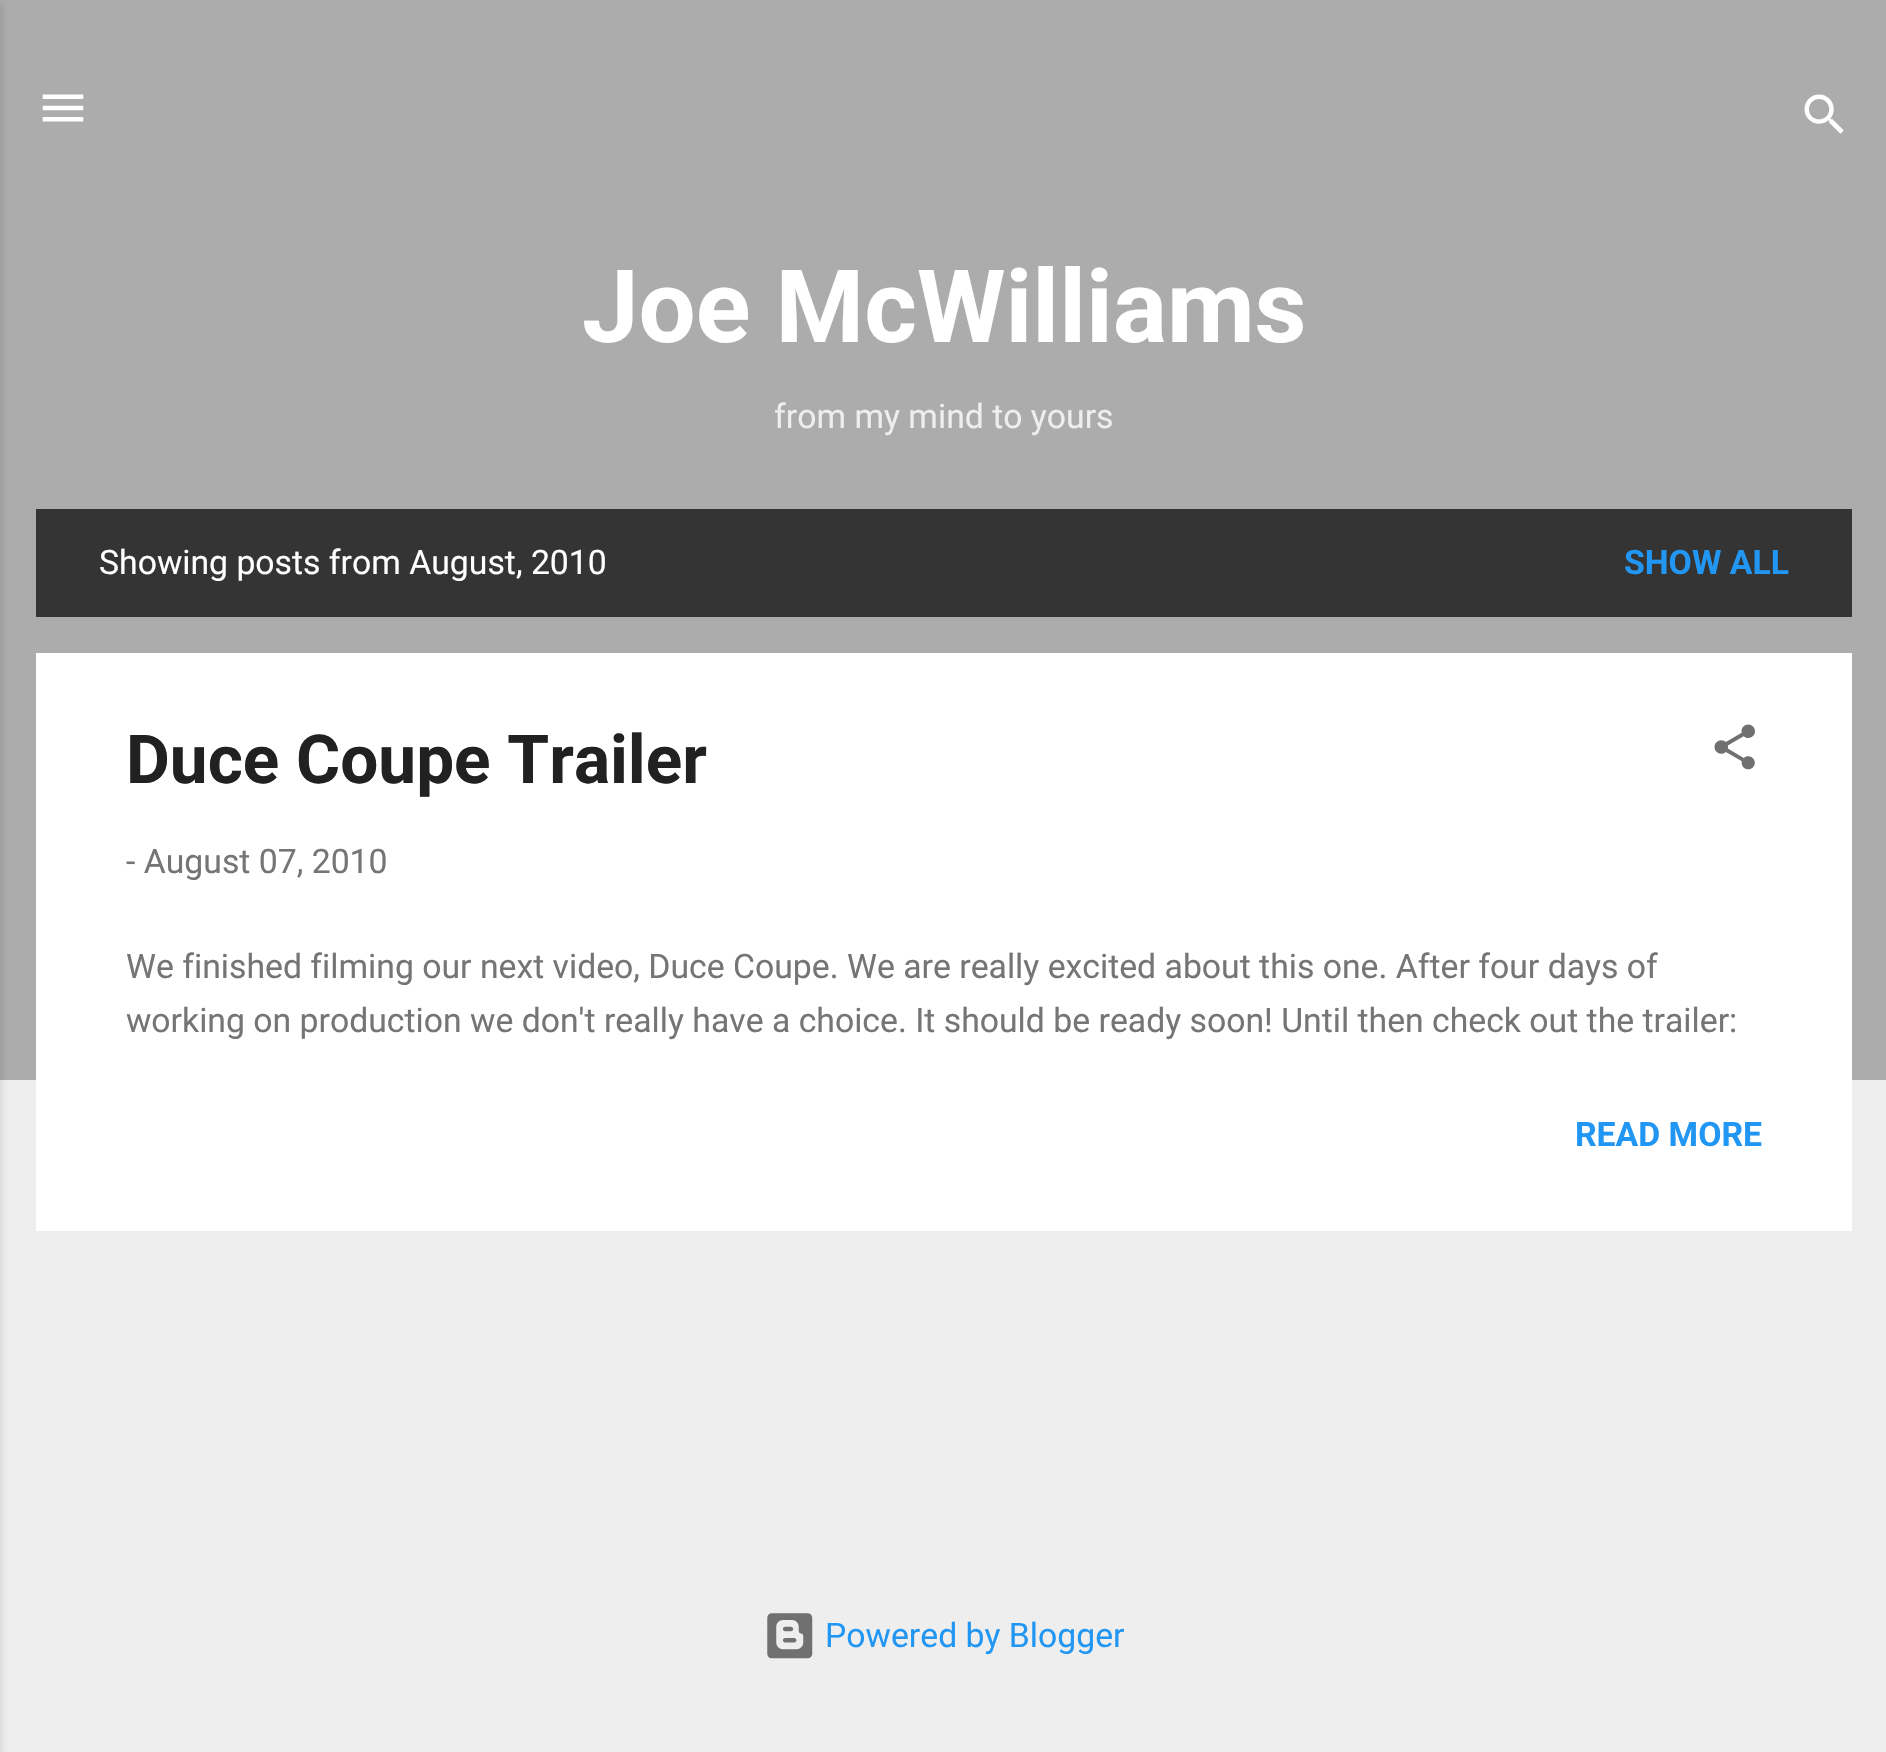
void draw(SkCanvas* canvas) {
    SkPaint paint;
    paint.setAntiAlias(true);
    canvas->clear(0xFFEEEEEE);
    paint.setColor(0xFFACACAC);
    canvas->drawRect(SkRect::MakeXYWH(0, 0, 1886, 1080), paint);
    paint.setColor(0x1A000000);
    paint.setMaskFilter(SkMaskFilter::MakeBlur(kNormal_SkBlurStyle, 3.5f));
    canvas->drawRect(SkRect::MakeXYWH(-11, 2, 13, 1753), paint);
    paint.setMaskFilter(nullptr);
    canvas->drawImageRect(SkImages::DeferredFromEncodedData(SkData::MakeFromFileName("img1.png")), SkRect::MakeXYWH(42, 94, 42, 28), SkSamplingOptions());
    canvas->drawImageRect(SkImages::DeferredFromEncodedData(SkData::MakeFromFileName("img2.png")), SkRect::MakeXYWH(1804, 94, 40, 40), SkSamplingOptions());
    SkFont font1(fontMgr->matchFamilyStyle("Roboto", SkFontStyle::Bold()), 101.25f);
    font1.setSubpixel(true);
    paint.setColor(0xFFFFFFFF);
    canvas->drawString("Joe McWilliams", 582, 342, font1, paint);
    SkFont font2(fontMgr->matchFamilyStyle("Roboto", SkFontStyle::Normal()), 33.75f);
    font2.setSubpixel(true);
    paint.setColor(0xFFEEEEEE);
    canvas->drawString("from my mind to yours", 774, 428, font2, paint);
    paint.setColor(0xFF343434);
    canvas->drawRect(SkRect::MakeXYWH(36, 509, 1816, 108), paint);
    paint.setColor(0xFFFFFFFF);
    canvas->drawString("Showing posts from August, 2010", 99, 574, font2, paint);
    SkFont font3(fontMgr->matchFamilyStyle("Roboto", SkFontStyle::Bold()), 33.75f);
    font3.setSubpixel(true);
    paint.setColor(0xFF2196F3);
    canvas->drawString("SHOW ALL", 1624, 574, font3, paint);
    paint.setColor(0xFFFFFFFF);
    canvas->drawRect(SkRect::MakeXYWH(36, 653, 1816, 578), paint);
    SkFont font4(fontMgr->matchFamilyStyle("Roboto", SkFontStyle::Bold()), 67.5f);
    font4.setSubpixel(true);
    paint.setColor(0xFF212121);
    canvas->drawString("Duce Coupe Trailer", 126, 783, font4, paint);
    canvas->drawImageRect(SkImages::DeferredFromEncodedData(SkData::MakeFromFileName("img3.png")), SkRect::MakeXYWH(1714, 724, 41, 46), SkSamplingOptions());
    paint.setColor(0xFF757575);
    canvas->drawString("- August 07, 2010", 126, 873, font2, paint);
    canvas->drawString("We finished filming our next video, Duce Coupe. We are really excited about this one. After four days of", 126, 978, font2, paint);
    canvas->drawString("working on production we don't really have a choice. It should be ready soon! Until then check out the trailer:", 126, 1032, font2, paint);
    paint.setColor(0xFF2196F3);
    canvas->drawString("READ MORE", 1575, 1146, font3, paint);
    canvas->drawImageRect(SkImages::DeferredFromEncodedData(SkData::MakeFromFileName("img4.png")), SkRect::MakeXYWH(767, 1613, 46, 46), SkSamplingOptions());
    canvas->drawString("Powered by Blogger", 825, 1647, font2, paint);
}
